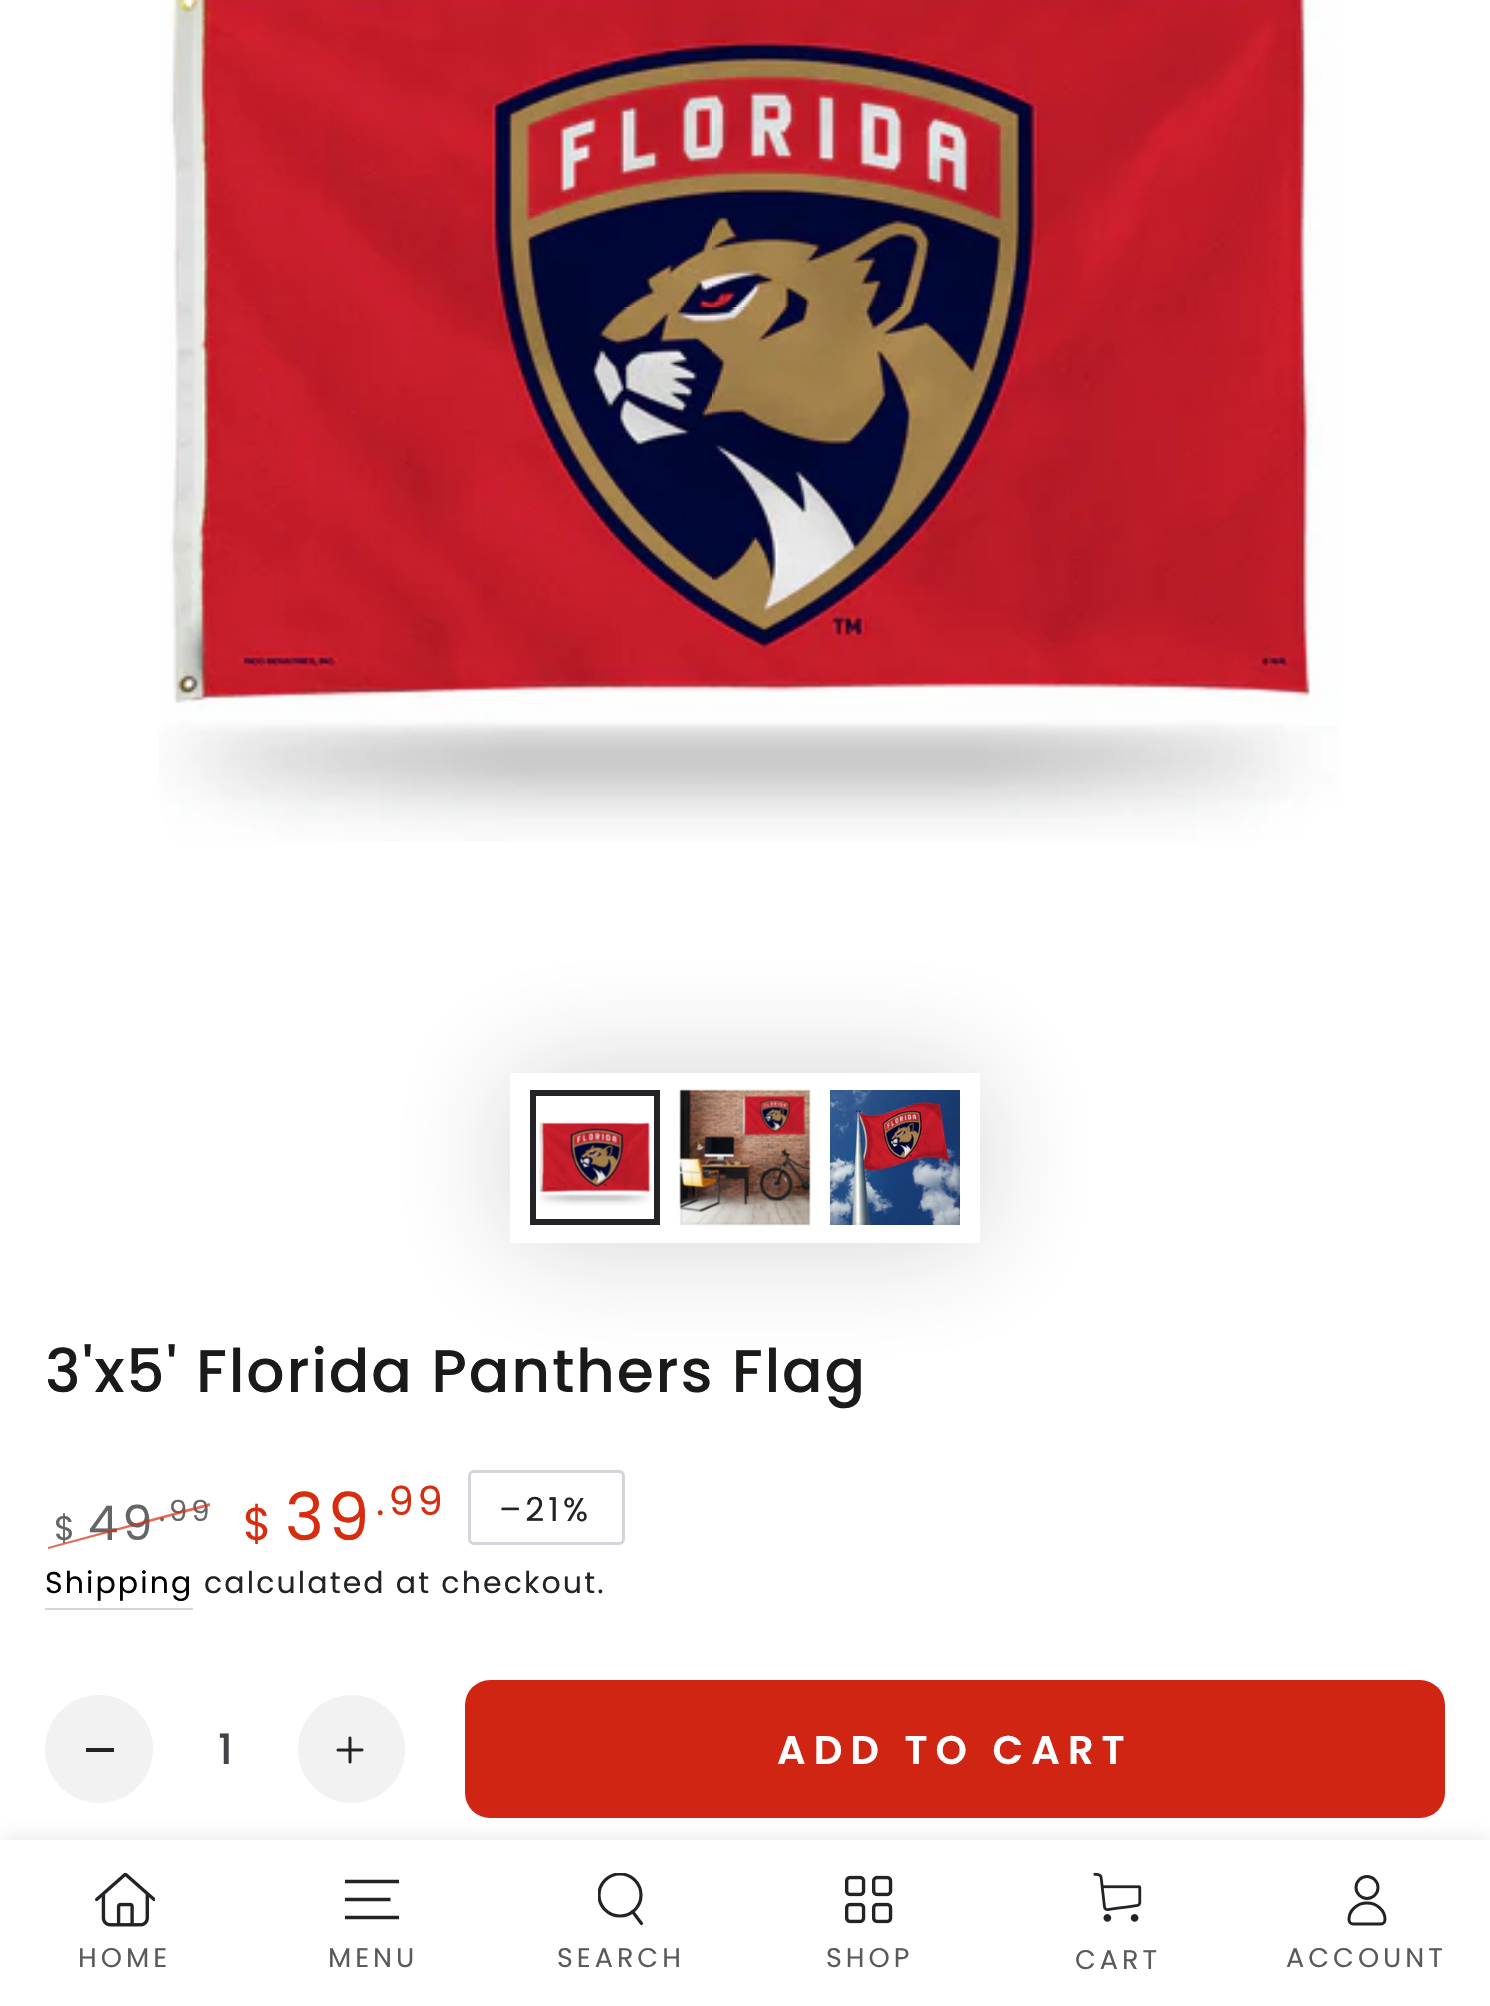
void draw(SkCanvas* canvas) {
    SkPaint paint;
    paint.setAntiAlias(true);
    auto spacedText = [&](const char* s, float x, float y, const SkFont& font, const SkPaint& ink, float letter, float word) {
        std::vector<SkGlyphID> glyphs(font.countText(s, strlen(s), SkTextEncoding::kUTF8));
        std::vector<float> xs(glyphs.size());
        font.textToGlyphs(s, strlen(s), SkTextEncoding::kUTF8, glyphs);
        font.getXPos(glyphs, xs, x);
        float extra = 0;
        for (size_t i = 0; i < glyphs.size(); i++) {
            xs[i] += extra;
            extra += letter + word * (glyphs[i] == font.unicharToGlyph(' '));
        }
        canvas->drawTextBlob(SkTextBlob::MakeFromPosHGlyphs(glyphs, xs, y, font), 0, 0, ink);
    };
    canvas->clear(0xFFFFFFFF);
    canvas->drawImageRect(SkImages::DeferredFromEncodedData(SkData::MakeFromFileName("img1.png")), SkRect::MakeXYWH(159, 0, 1180, 842), SkSamplingOptions());
    paint.setColor(0x33212326);
    paint.setMaskFilter(SkMaskFilter::MakeBlur(kNormal_SkBlurStyle, 60));
    canvas->drawRect(SkRect::MakeXYWH(510, 1073, 470, 170), paint);
    paint.setMaskFilter(nullptr);
    paint.setColor(0xFFFFFFFF);
    canvas->drawRect(SkRect::MakeXYWH(510, 1073, 470, 170), paint);
    canvas->drawImageRect(SkImages::DeferredFromEncodedData(SkData::MakeFromFileName("img2.png")), SkRect::MakeXYWH(538, 1120, 116, 86), SkSamplingOptions());
    paint.setStyle(SkPaint::kStroke_Style);
    paint.setStrokeWidth(6);
    paint.setColor(0xFF212326);
    canvas->drawRect(SkRect::MakeXYWH(533, 1093, 124, 129), paint);
    canvas->drawImageRect(SkImages::DeferredFromEncodedData(SkData::MakeFromFileName("img3.png")), SkRect::MakeXYWH(679, 1089, 132, 137), SkSamplingOptions());
    paint.setStrokeWidth(3);
    paint.setColor(0x0A212326);
    canvas->drawRect(SkRect::MakeXYWH(681.5f, 1091.5f, 127, 132), paint);
    canvas->drawImageRect(SkImages::DeferredFromEncodedData(SkData::MakeFromFileName("img4.png")), SkRect::MakeXYWH(830, 1090, 130, 135), SkSamplingOptions());
    canvas->drawRect(SkRect::MakeXYWH(831.5f, 1091.5f, 127, 132), paint);
    SkFont font1(fontMgr->matchFamilyStyle("Poppins", SkFontStyle(500, SkFontStyle::kNormal_Width, SkFontStyle::kUpright_Slant)), 60);
    font1.setSubpixel(true);
    paint.setStyle(SkPaint::kFill_Style);
    paint.setColor(0xFF1A1B18);
    spacedText("3'x5' Florida Panthers Flag", 45, 1392, font1, paint, 1.8f, 0);
    SkFont font2(fontMgr->matchFamilyStyle("Poppins", SkFontStyle::Normal()), 29);
    font2.setSubpixel(true);
    paint.setColor(0xFF646567);
    spacedText(".99", 159, 1521, font2, paint, 4, 0);
    SkFont font3(fontMgr->matchFamilyStyle("Poppins", SkFontStyle::Normal()), 34);
    font3.setSubpixel(true);
    spacedText("$", 54, 1540, font3, paint, 4, 0);
    SkFont font4(fontMgr->matchFamilyStyle("Poppins", SkFontStyle::Normal()), 48);
    font4.setSubpixel(true);
    spacedText("49", 88, 1540, font4, paint, 4, 0);
    paint.setColor(0xB3D72C0D);
    canvas->drawPath(SkPathBuilder().moveTo(48, 1547).lineTo(210, 1503).lineTo(210, 1506).lineTo(48, 1549).close().detach(), paint);
    SkFont font5(fontMgr->matchFamilyStyle("Poppins", SkFontStyle::Normal()), 46);
    font5.setSubpixel(true);
    paint.setColor(0xFFD72C0D);
    spacedText("$", 243, 1540, font5, paint, 4, 0);
    SkFont font6(fontMgr->matchFamilyStyle("Poppins", SkFontStyle::Normal()), 66);
    font6.setSubpixel(true);
    spacedText("39", 285, 1540, font6, paint, 4, 0);
    SkFont font7(fontMgr->matchFamilyStyle("Poppins", SkFontStyle::Normal()), 40);
    font7.setSubpixel(true);
    spacedText(".99", 376, 1515, font7, paint, 4, 0);
    paint.setStyle(SkPaint::kStroke_Style);
    paint.setColor(0xFFD2D5D9);
    canvas->drawRoundRect(SkRect::MakeXYWH(469.5f, 1471.5f, 154, 72), 4.5f, 4.5f, paint);
    SkFont font8(fontMgr->matchFamilyStyle("Poppins", SkFontStyle::Normal()), 33);
    font8.setSubpixel(true);
    paint.setStyle(SkPaint::kFill_Style);
    paint.setColor(0xFF212326);
    spacedText("–21%", 499, 1521, font8, paint, 4, 0);
    SkFont font9(fontMgr->matchFamilyStyle("Poppins", SkFontStyle::Normal()), 30);
    font9.setSubpixel(true);
    paint.setColor(0xFF000000);
    spacedText("Shipping", 45, 1593, font9, paint, 2.1f, 0);
    paint.setColor(0xFFD2D5D9);
    canvas->drawRect(SkRect::MakeXYWH(45, 1608, 148, 2), paint);
    paint.setColor(0xFF212326);
    spacedText("calculated at checkout.", 204, 1593, font9, paint, 2.1f, 0);
    paint.setColor(0xFFF2F2F2);
    canvas->drawCircle(99, 1749, 54, paint);
    paint.setColor(0xFF212326);
    canvas->drawRect(SkRect::MakeXYWH(86, 1748, 28, 4), paint);
    SkFont font10(fontMgr->matchFamilyStyle("Poppins", SkFontStyle(500, SkFontStyle::kNormal_Width, SkFontStyle::kUpright_Slant)), 42);
    font10.setSubpixel(true);
    paint.setColor(0xFF424447);
    canvas->drawString("1", 218, 1764, font10, paint);
    paint.setColor(0xFFF2F2F2);
    canvas->drawRoundRect(SkRect::MakeXYWH(298, 1695, 107, 108), 53.5f, 53.5f, paint);
    canvas->drawImageRect(SkImages::DeferredFromEncodedData(SkData::MakeFromFileName("img5.png")), SkRect::MakeXYWH(336, 1736, 28, 28), SkSamplingOptions());
    paint.setColor(0xFFD12514);
    canvas->drawRoundRect(SkRect::MakeXYWH(465, 1680, 980, 138), 25, 25, paint);
    SkFont font11(fontMgr->matchFamilyStyle("Poppins", SkFontStyle(600, SkFontStyle::kNormal_Width, SkFontStyle::kUpright_Slant)), 40);
    font11.setSubpixel(true);
    paint.setColor(0xFFFFFFFF);
    spacedText("ADD TO CART", 777, 1764, font11, paint, 8, 0);
    paint.setColor(0x26212326);
    paint.setMaskFilter(SkMaskFilter::MakeBlur(kNormal_SkBlurStyle, 12));
    canvas->drawRect(SkRect::MakeXYWH(0, 1843, 1490, 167), paint);
    paint.setMaskFilter(nullptr);
    paint.setColor(0xFFFFFFFF);
    canvas->drawRect(SkRect::MakeXYWH(0, 1840, 1490, 166), paint);
    canvas->drawImageRect(SkImages::DeferredFromEncodedData(SkData::MakeFromFileName("img6.png")), SkRect::MakeXYWH(95, 1873, 60, 54), SkSamplingOptions());
    SkFont font12(fontMgr->matchFamilyStyle("Poppins", SkFontStyle::Normal()), 27);
    font12.setSubpixel(true);
    paint.setColor(0xFF595A5C);
    spacedText("HOME", 78, 1967, font12, paint, 4, 0);
    paint.setStyle(SkPaint::kStroke_Style);
    paint.setStrokeWidth(3.4f);
    paint.setColor(0xFF212326);
    canvas->drawPath(SkPathBuilder().moveTo(345, 1917.5f).lineTo(399, 1917.5f).moveTo(345, 1899.5f).lineTo(390.5f, 1899.5f).moveTo(345, 1881.5f).lineTo(399, 1881.5f).detach(), paint);
    paint.setStyle(SkPaint::kFill_Style);
    paint.setColor(0xFF595A5C);
    spacedText("MENU", 328, 1967, font12, paint, 4, 0);
    canvas->save();
    canvas->clipRect(SkRect::MakeXYWH(598, 1873, 47, 55));
    paint.setStyle(SkPaint::kStroke_Style);
    paint.setStrokeWidth(3.2f);
    paint.setColor(0xFF212326);
    canvas->drawCircle(620, 1895, 21, paint);
    canvas->restore();
    paint.setStrokeCap(SkPaint::kRound_Cap);
    canvas->drawPath(SkPathBuilder().moveTo(632.5f, 1911.5f).lineTo(641.5f, 1923.5f).detach(), paint);
    paint.setStyle(SkPaint::kFill_Style);
    paint.setColor(0xFF595A5C);
    spacedText("SEARCH", 557, 1967, font12, paint, 4, 0);
    canvas->drawImageRect(SkImages::DeferredFromEncodedData(SkData::MakeFromFileName("img7.png")), SkRect::MakeXYWH(845, 1875, 48, 49), SkSamplingOptions());
    spacedText("SHOP", 826, 1967, font12, paint, 4, 0);
    canvas->drawImageRect(SkImages::DeferredFromEncodedData(SkData::MakeFromFileName("img8.png")), SkRect::MakeXYWH(1093, 1872, 49, 50), SkSamplingOptions());
    spacedText("CART", 1075, 1969, font12, paint, 4, 0);
    paint.setStyle(SkPaint::kStroke_Style);
    paint.setStrokeWidth(3);
    paint.setStrokeCap(SkPaint::kButt_Cap);
    paint.setColor(0xFF212326);
    canvas->drawPath(SkPathBuilder().moveTo(1367, 1903).cubicTo(1357, 1903, 1349, 1910.5f, 1349, 1919.5f).cubicTo(1349, 1922, 1351, 1924, 1353, 1924).lineTo(1381, 1924).cubicTo(1383, 1924, 1385, 1922, 1385, 1919.5f).cubicTo(1385, 1910.5f, 1377, 1903, 1367, 1903).close().detach(), paint);
    canvas->drawCircle(1367, 1887.5f, 11, paint);
    paint.setStyle(SkPaint::kFill_Style);
    paint.setColor(0xFF595A5C);
    spacedText("ACCOUNT", 1286, 1967, font12, paint, 4, 0);
}
